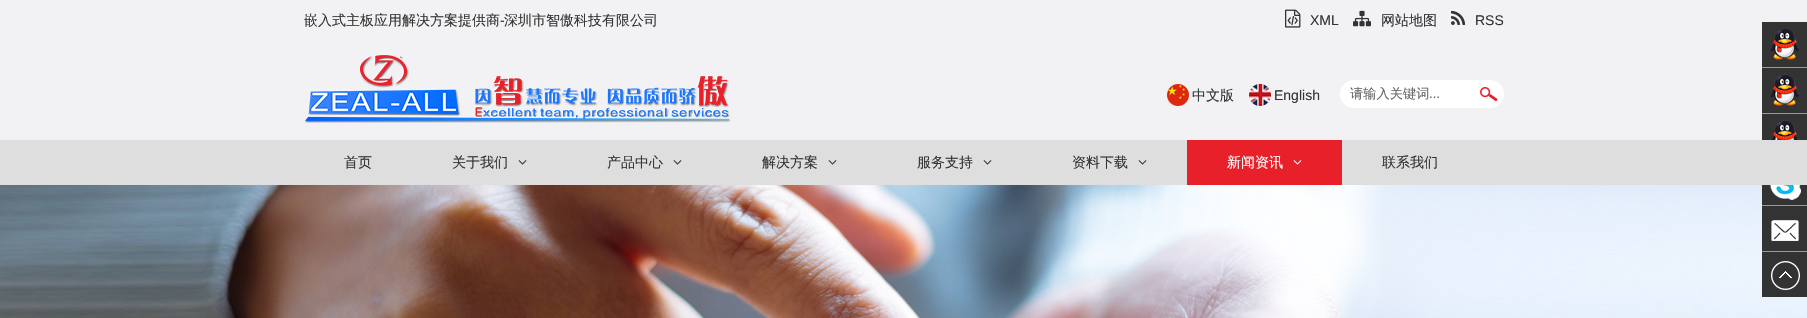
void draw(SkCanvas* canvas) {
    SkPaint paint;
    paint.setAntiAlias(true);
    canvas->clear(0xFFF2F2F4);
    SkFont font1(fontMgr->matchFamilyStyle("WenQuanYi Zen Hei", SkFontStyle(500, SkFontStyle::kNormal_Width, SkFontStyle::kUpright_Slant)), 14);
    font1.setSubpixel(true);
    paint.setColor(0xFF333333);
    canvas->drawString("嵌入式主板应用解决方案提供商", 304, 25, font1, paint);
    SkFont font2(fontMgr->matchFamilyStyle("Liberation Sans", SkFontStyle::Normal()), 14);
    font2.setSubpixel(true);
    canvas->drawString("-", 500, 25, font2, paint);
    canvas->drawString("深圳市智傲科技有限公司", 504, 25, font1, paint);
    canvas->drawImageRect(SkImages::DeferredFromEncodedData(SkData::MakeFromFileName("img1.png")), SkRect::MakeXYWH(1285, 9, 16, 19), SkSamplingOptions());
    canvas->drawString("XML", 1310, 25, font2, paint);
    canvas->drawImageRect(SkImages::DeferredFromEncodedData(SkData::MakeFromFileName("img2.png")), SkRect::MakeXYWH(1353, 10, 18, 17), SkSamplingOptions());
    canvas->drawString("网站地图", 1381, 25, font1, paint);
    canvas->drawImageRect(SkImages::DeferredFromEncodedData(SkData::MakeFromFileName("img3.png")), SkRect::MakeXYWH(1451, 10, 15, 15), SkSamplingOptions());
    canvas->drawString("RSS", 1475, 25, font2, paint);
    canvas->drawImageRect(SkImages::DeferredFromEncodedData(SkData::MakeFromFileName("img4.png")), SkRect::MakeXYWH(304, 54, 427, 69), SkSamplingOptions());
    canvas->drawImageRect(SkImages::DeferredFromEncodedData(SkData::MakeFromFileName("img5.png")), SkRect::MakeXYWH(1167, 84, 22, 22), SkSamplingOptions());
    canvas->drawString("中文版", 1192, 100, font1, paint);
    canvas->drawImageRect(SkImages::DeferredFromEncodedData(SkData::MakeFromFileName("img6.png")), SkRect::MakeXYWH(1249, 84, 22, 22), SkSamplingOptions());
    canvas->drawString("English", 1274, 100, font2, paint);
    paint.setColor(0xFFFFFFFF);
    canvas->drawRoundRect(SkRect::MakeXYWH(1340, 80, 164, 28), 14, 14, paint);
    SkFont font3(fontMgr->matchFamilyStyle("WenQuanYi Zen Hei", SkFontStyle(500, SkFontStyle::kNormal_Width, SkFontStyle::kUpright_Slant)), 13.25f);
    font3.setSubpixel(true);
    paint.setColor(0xFF666666);
    canvas->drawString("请输入关键词", 1350, 98, font3, paint);
    SkFont font4(fontMgr->matchFamilyStyle("Liberation Sans", SkFontStyle::Normal()), 13.25f);
    font4.setSubpixel(true);
    canvas->drawString("...", 1429, 98, font4, paint);
    canvas->drawImageRect(SkImages::DeferredFromEncodedData(SkData::MakeFromFileName("img7.png")), SkRect::MakeXYWH(1480, 87, 18, 14), SkSamplingOptions());
    paint.setColor(0xFF333333);
    canvas->drawRect(SkRect::MakeXYWH(1762, 22, 45, 45), paint);
    paint.setColor(0xFF999999);
    canvas->drawRect(SkRect::MakeXYWH(1762, 67, 45, 1), paint);
    canvas->drawImageRect(SkImages::DeferredFromEncodedData(SkData::MakeFromFileName("img8.png")), SkRect::MakeXYWH(1770, 28, 29, 32), SkSamplingOptions());
    paint.setColor(0xFF333333);
    canvas->drawRect(SkRect::MakeXYWH(1762, 68, 45, 45), paint);
    paint.setColor(0xFF999999);
    canvas->drawRect(SkRect::MakeXYWH(1762, 113, 45, 1), paint);
    canvas->drawImageRect(SkImages::DeferredFromEncodedData(SkData::MakeFromFileName("img8.png")), SkRect::MakeXYWH(1770, 74, 29, 32), SkSamplingOptions());
    paint.setColor(0xFF333333);
    canvas->drawRect(SkRect::MakeXYWH(1762, 114, 45, 26), paint);
    canvas->drawImageRect(SkImages::DeferredFromEncodedData(SkData::MakeFromFileName("img9.png")), SkRect::MakeXYWH(1770, 120, 29, 20), SkSamplingOptions());
    canvas->drawImageRect(SkImages::DeferredFromEncodedData(SkData::MakeFromFileName("img15.png")), SkRect::MakeXYWH(0, 185, 1807, 133), SkSamplingOptions());
    canvas->drawRect(SkRect::MakeXYWH(1762, 185, 45, 20), paint);
    paint.setColor(0xFF999999);
    canvas->drawRect(SkRect::MakeXYWH(1762, 205, 45, 1), paint);
    canvas->drawImageRect(SkImages::DeferredFromEncodedData(SkData::MakeFromFileName("img10.png")), SkRect::MakeXYWH(1770, 185, 31, 15), SkSamplingOptions());
    paint.setColor(0xFF333333);
    canvas->drawRect(SkRect::MakeXYWH(1762, 206, 45, 45), paint);
    paint.setColor(0xFF999999);
    canvas->drawRect(SkRect::MakeXYWH(1762, 251, 45, 1), paint);
    canvas->drawImageRect(SkImages::DeferredFromEncodedData(SkData::MakeFromFileName("img11.png")), SkRect::MakeXYWH(1771, 220, 28, 21), SkSamplingOptions());
    paint.setColor(0xFF333333);
    canvas->drawRect(SkRect::MakeXYWH(1762, 252, 45, 45), paint);
    canvas->drawImageRect(SkImages::DeferredFromEncodedData(SkData::MakeFromFileName("img12.png")), SkRect::MakeXYWH(1771, 261, 29, 29), SkSamplingOptions());
    paint.setColor(0xFFDEDEDE);
    canvas->drawRect(SkRect::MakeXYWH(0, 140, 1807, 45), paint);
    paint.setColor(0xFF333333);
    canvas->drawString("首页", 344, 167, font1, paint);
    canvas->drawString("关于我们", 452, 167, font1, paint);
    canvas->drawImageRect(SkImages::DeferredFromEncodedData(SkData::MakeFromFileName("img13.png")), SkRect::MakeXYWH(518, 160, 9, 5), SkSamplingOptions());
    canvas->drawString("产品中心", 607, 167, font1, paint);
    canvas->drawImageRect(SkImages::DeferredFromEncodedData(SkData::MakeFromFileName("img13.png")), SkRect::MakeXYWH(673, 160, 9, 5), SkSamplingOptions());
    canvas->drawString("解决方案", 762, 167, font1, paint);
    canvas->drawImageRect(SkImages::DeferredFromEncodedData(SkData::MakeFromFileName("img13.png")), SkRect::MakeXYWH(828, 160, 9, 5), SkSamplingOptions());
    canvas->drawString("服务支持", 917, 167, font1, paint);
    canvas->drawImageRect(SkImages::DeferredFromEncodedData(SkData::MakeFromFileName("img13.png")), SkRect::MakeXYWH(983, 160, 9, 5), SkSamplingOptions());
    canvas->drawString("资料下载", 1072, 167, font1, paint);
    canvas->drawImageRect(SkImages::DeferredFromEncodedData(SkData::MakeFromFileName("img13.png")), SkRect::MakeXYWH(1138, 160, 9, 5), SkSamplingOptions());
    paint.setColor(0xFFE8202A);
    canvas->drawRect(SkRect::MakeXYWH(1187, 140, 155, 45), paint);
    paint.setColor(0xFFFFFFFF);
    canvas->drawString("新闻资讯", 1227, 167, font1, paint);
    canvas->drawImageRect(SkImages::DeferredFromEncodedData(SkData::MakeFromFileName("img14.png")), SkRect::MakeXYWH(1293, 160, 9, 5), SkSamplingOptions());
    paint.setColor(0xFF333333);
    canvas->drawString("联系我们", 1382, 167, font1, paint);
}
